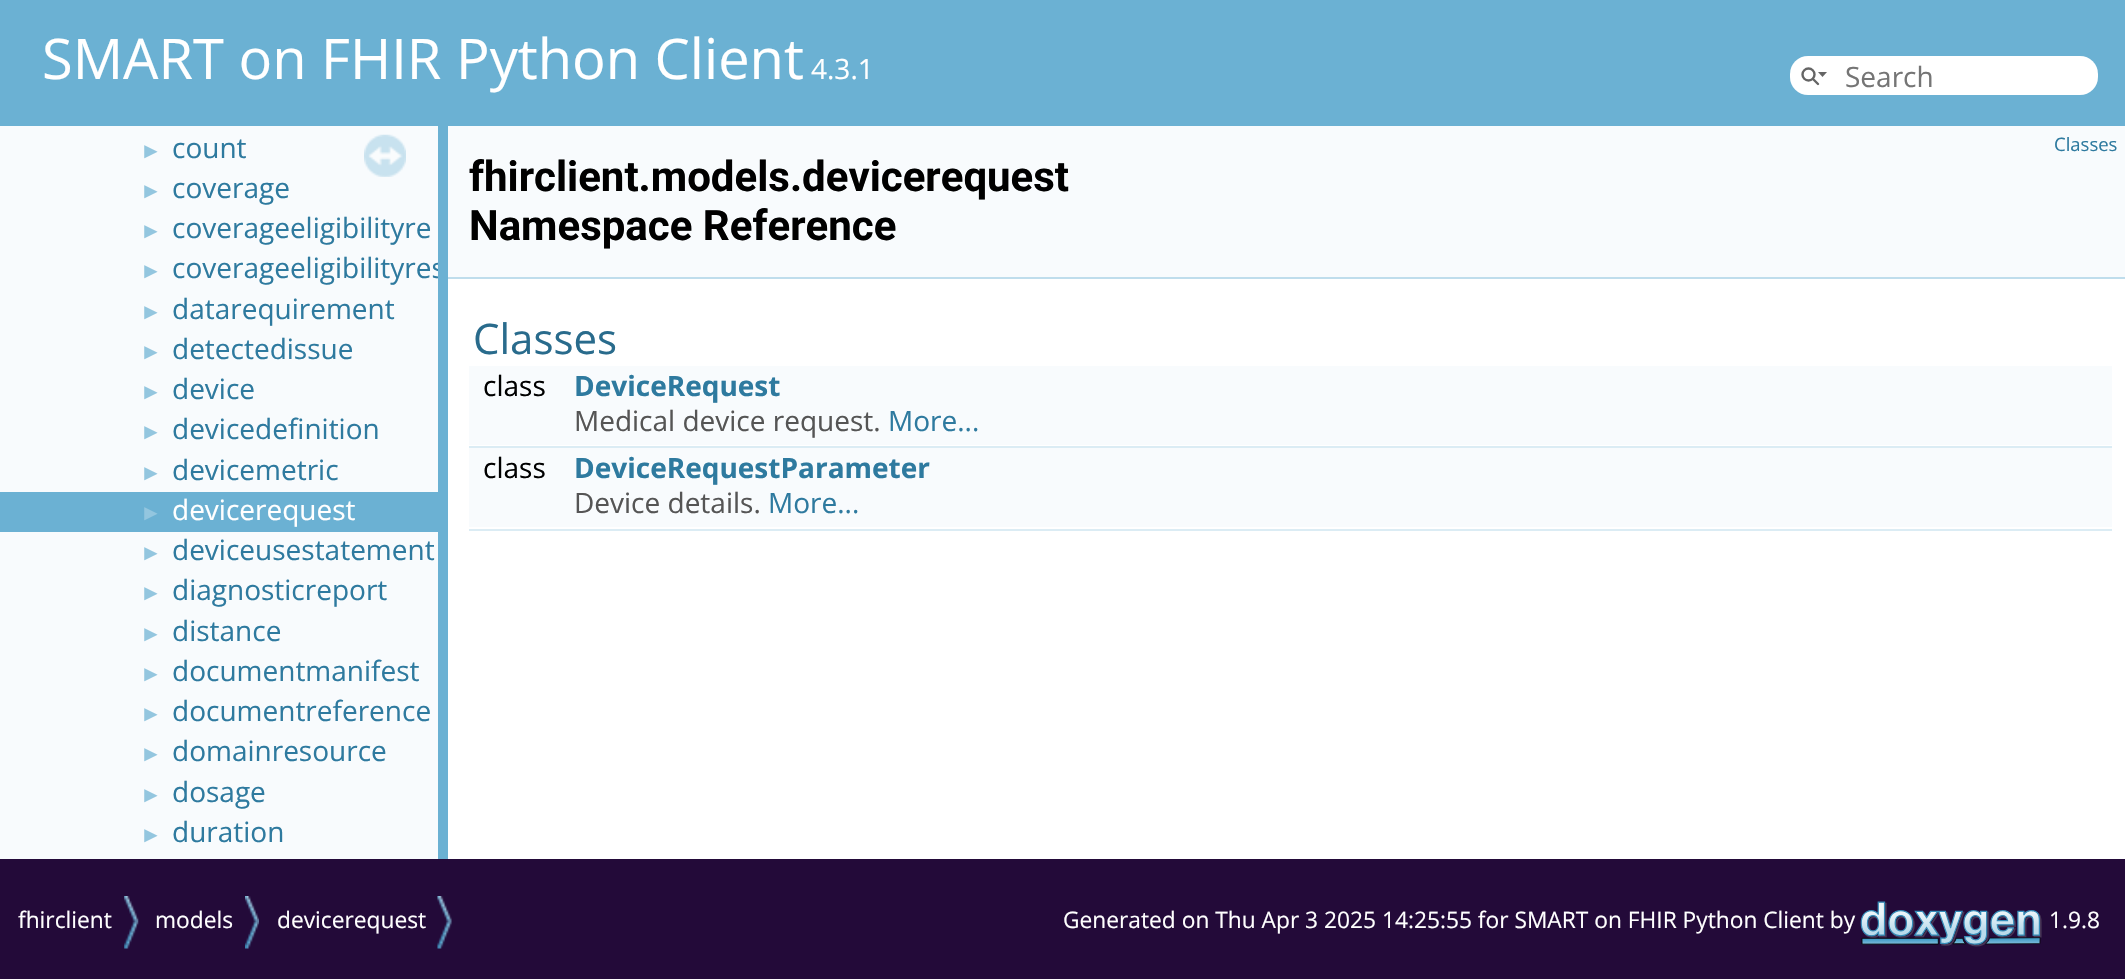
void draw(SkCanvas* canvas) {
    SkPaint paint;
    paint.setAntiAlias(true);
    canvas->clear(0xFFFFFFFF);
    paint.setColor(0xFF6BB1D3);
    canvas->drawRect(SkRect::MakeXYWH(0, 0, 2125, 126), paint);
    SkFont font1(fontMgr->matchFamilyStyle("Open Sans", SkFontStyle::Normal()), 56);
    font1.setSubpixel(true);
    paint.setColor(0xFFFFFFFF);
    canvas->drawString("SMART on FHIR Python Client", 42, 79, font1, paint);
    SkFont font2(fontMgr->matchFamilyStyle("Open Sans", SkFontStyle::Normal()), 28);
    font2.setSubpixel(true);
    canvas->drawString("4.3.1", 811, 79, font2, paint);
    canvas->drawRoundRect(SkRect::MakeXYWH(1790, 56, 308, 39), 18, 18, paint);
    paint.setStyle(SkPaint::kStroke_Style);
    paint.setStrokeWidth(2.4f);
    paint.setColor(0xFF656565);
    canvas->drawCircle(1808.5f, 74.5f, 6, paint);
    paint.setStyle(SkPaint::kFill_Style);
    canvas->drawPath(SkPathBuilder().moveTo(1818, 72).lineTo(1822.5f, 77).lineTo(1827, 72).close().detach(), paint);
    paint.setStyle(SkPaint::kStroke_Style);
    paint.setStrokeCap(SkPaint::kRound_Cap);
    canvas->drawPath(SkPathBuilder().moveTo(1813, 79).lineTo(1818, 84).detach(), paint);
    paint.setStyle(SkPaint::kFill_Style);
    paint.setColor(0xFF757575);
    canvas->drawString("Search", 1845, 87, font2, paint);
    paint.setColor(0xFFF8FBFD);
    canvas->drawRect(SkRect::MakeXYWH(0, 126, 438, 733), paint);
    canvas->drawImageRect(SkImages::DeferredFromEncodedData(SkData::MakeFromFileName("img1.png")), SkRect::MakeXYWH(364, 134, 42, 43), SkSamplingOptions());
    SkFont font3(fontMgr->matchFamilyStyle("Liberation Sans", SkFontStyle::Normal()), 22);
    font3.setSubpixel(true);
    paint.setColor(0xFF93C6DF);
    canvas->drawString("►", 140, 158, font3, paint);
    paint.setColor(0xFF2E7A9F);
    canvas->drawString("count", 172, 158, font2, paint);
    paint.setColor(0xFF93C6DF);
    canvas->drawString("►", 140, 198, font3, paint);
    paint.setColor(0xFF2E7A9F);
    canvas->drawString("coverage", 172, 198, font2, paint);
    paint.setColor(0xFF93C6DF);
    canvas->drawString("►", 140, 238, font3, paint);
    paint.setColor(0xFF2E7A9F);
    canvas->drawString("coverageeligibilityre", 172, 238, font2, paint);
    paint.setColor(0xFF93C6DF);
    canvas->drawString("►", 140, 278, font3, paint);
    paint.setColor(0xFF2E7A9F);
    canvas->drawString("coverageeligibilityres", 172, 278, font2, paint);
    paint.setColor(0xFF93C6DF);
    canvas->drawString("►", 140, 319, font3, paint);
    paint.setColor(0xFF2E7A9F);
    canvas->drawString("datarequirement", 172, 319, font2, paint);
    paint.setColor(0xFF93C6DF);
    canvas->drawString("►", 140, 359, font3, paint);
    paint.setColor(0xFF2E7A9F);
    canvas->drawString("detectedissue", 172, 359, font2, paint);
    paint.setColor(0xFF93C6DF);
    canvas->drawString("►", 140, 399, font3, paint);
    paint.setColor(0xFF2E7A9F);
    canvas->drawString("device", 172, 399, font2, paint);
    paint.setColor(0xFF93C6DF);
    canvas->drawString("►", 140, 439, font3, paint);
    paint.setColor(0xFF2E7A9F);
    canvas->drawString("devicedefinition", 172, 439, font2, paint);
    paint.setColor(0xFF93C6DF);
    canvas->drawString("►", 140, 480, font3, paint);
    paint.setColor(0xFF2E7A9F);
    canvas->drawString("devicemetric", 172, 480, font2, paint);
    paint.setColor(0xFF6BB1D3);
    canvas->drawRect(SkRect::MakeXYWH(0, 492, 438, 40), paint);
    paint.setColor(0xFF93C6DF);
    canvas->drawString("►", 140, 520, font3, paint);
    paint.setColor(0xFFFFFFFF);
    canvas->drawString("devicerequest", 172, 520, font2, paint);
    paint.setColor(0xFF93C6DF);
    canvas->drawString("►", 140, 560, font3, paint);
    paint.setColor(0xFF2E7A9F);
    canvas->drawString("deviceusestatement", 172, 560, font2, paint);
    paint.setColor(0xFF93C6DF);
    canvas->drawString("►", 140, 600, font3, paint);
    paint.setColor(0xFF2E7A9F);
    canvas->drawString("diagnosticreport", 172, 600, font2, paint);
    paint.setColor(0xFF93C6DF);
    canvas->drawString("►", 140, 641, font3, paint);
    paint.setColor(0xFF2E7A9F);
    canvas->drawString("distance", 172, 641, font2, paint);
    paint.setColor(0xFF93C6DF);
    canvas->drawString("►", 140, 681, font3, paint);
    paint.setColor(0xFF2E7A9F);
    canvas->drawString("documentmanifest", 172, 681, font2, paint);
    paint.setColor(0xFF93C6DF);
    canvas->drawString("►", 140, 721, font3, paint);
    paint.setColor(0xFF2E7A9F);
    canvas->drawString("documentreference", 172, 721, font2, paint);
    paint.setColor(0xFF93C6DF);
    canvas->drawString("►", 140, 761, font3, paint);
    paint.setColor(0xFF2E7A9F);
    canvas->drawString("domainresource", 172, 761, font2, paint);
    paint.setColor(0xFF93C6DF);
    canvas->drawString("►", 140, 802, font3, paint);
    paint.setColor(0xFF2E7A9F);
    canvas->drawString("dosage", 172, 802, font2, paint);
    paint.setColor(0xFF93C6DF);
    canvas->drawString("►", 140, 842, font3, paint);
    paint.setColor(0xFF2E7A9F);
    canvas->drawString("duration", 172, 842, font2, paint);
    paint.setColor(0xFF6BB1D3);
    canvas->drawRect(SkRect::MakeXYWH(438, 126, 10, 733), paint);
    paint.setColor(0xFFF8FBFD);
    canvas->drawRect(SkRect::MakeXYWH(448, 126, 1677, 151), paint);
    paint.setColor(0xFFBFDDEC);
    canvas->drawRect(SkRect::MakeXYWH(448, 277, 1677, 2), paint);
    SkFont font4(fontMgr->matchFamilyStyle("Open Sans", SkFontStyle::Normal()), 18.5f);
    font4.setSubpixel(true);
    paint.setColor(0xFF2E7A9F);
    canvas->drawString("Classes", 2054, 151, font4, paint);
    SkFont font5(fontMgr->matchFamilyStyle("Roboto", SkFontStyle::Bold()), 42);
    font5.setSubpixel(true);
    paint.setColor(0xFF000000);
    canvas->drawString("fhirclient.models.devicerequest", 469, 191, font5, paint);
    canvas->drawString("Namespace Reference", 469, 240, font5, paint);
    SkFont font6(fontMgr->matchFamilyStyle("Open Sans", SkFontStyle::Normal()), 42);
    font6.setSubpixel(true);
    paint.setColor(0xFF296B8C);
    canvas->drawString("Classes", 473, 354, font6, paint);
    paint.setColor(0xFFF8FBFD);
    canvas->drawRect(SkRect::MakeXYWH(469, 366, 1643, 37), paint);
    paint.setColor(0xFF000000);
    canvas->drawString("class", 483, 396, font2, paint);
    SkFont font7(fontMgr->matchFamilyStyle("Open Sans", SkFontStyle::Bold()), 28);
    font7.setSubpixel(true);
    paint.setColor(0xFF2E7A9F);
    canvas->drawString("DeviceRequest", 574, 396, font7, paint);
    paint.setColor(0xFFF8FBFD);
    canvas->drawRect(SkRect::MakeXYWH(469, 403, 1643, 42), paint);
    paint.setColor(0xFF555555);
    canvas->drawString("Medical device request.", 574, 431, font2, paint);
    paint.setColor(0xFF2E7A9F);
    canvas->drawString("More...", 888, 431, font2, paint);
    paint.setColor(0xFFDBECF4);
    canvas->drawRect(SkRect::MakeXYWH(469, 446, 1643, 2), paint);
    paint.setColor(0xFFF8FBFD);
    canvas->drawRect(SkRect::MakeXYWH(469, 448, 1643, 37), paint);
    paint.setColor(0xFF000000);
    canvas->drawString("class", 483, 478, font2, paint);
    paint.setColor(0xFF2E7A9F);
    canvas->drawString("DeviceRequestParameter", 574, 478, font7, paint);
    paint.setColor(0xFFF8FBFD);
    canvas->drawRect(SkRect::MakeXYWH(469, 485, 1643, 42), paint);
    paint.setColor(0xFF555555);
    canvas->drawString("Device details.", 574, 513, font2, paint);
    paint.setColor(0xFF2E7A9F);
    canvas->drawString("More...", 768, 513, font2, paint);
    paint.setColor(0xFFDBECF4);
    canvas->drawRect(SkRect::MakeXYWH(469, 529, 1643, 2), paint);
    paint.setColor(0xFF230A39);
    canvas->drawRect(SkRect::MakeXYWH(0, 859, 2125, 120), paint);
    canvas->drawImageRect(SkImages::DeferredFromEncodedData(SkData::MakeFromFileName("img2.png")), SkRect::MakeXYWH(124, 896, 15, 53), SkSamplingOptions());
    SkFont font8(fontMgr->matchFamilyStyle("Open Sans", SkFontStyle::Normal()), 22.75f);
    font8.setSubpixel(true);
    paint.setColor(0xFFFFFFFF);
    canvas->drawString("fhirclient", 18, 928, font8, paint);
    canvas->drawImageRect(SkImages::DeferredFromEncodedData(SkData::MakeFromFileName("img3.png")), SkRect::MakeXYWH(245, 896, 14, 53), SkSamplingOptions());
    canvas->drawString("models", 155, 928, font8, paint);
    canvas->drawImageRect(SkImages::DeferredFromEncodedData(SkData::MakeFromFileName("img4.png")), SkRect::MakeXYWH(437, 896, 15, 53), SkSamplingOptions());
    canvas->drawString("devicerequest", 277, 928, font8, paint);
    canvas->drawString("Generated on Thu Apr 3 2025 14:25:55 for SMART on FHIR Python Client by", 1063, 928, font8, paint);
    canvas->drawImageRect(SkImages::DeferredFromEncodedData(SkData::MakeFromFileName("img5.png")), SkRect::MakeXYWH(1860, 901, 182, 46), SkSamplingOptions());
    canvas->drawString("1.9.8", 2049, 928, font8, paint);
}
